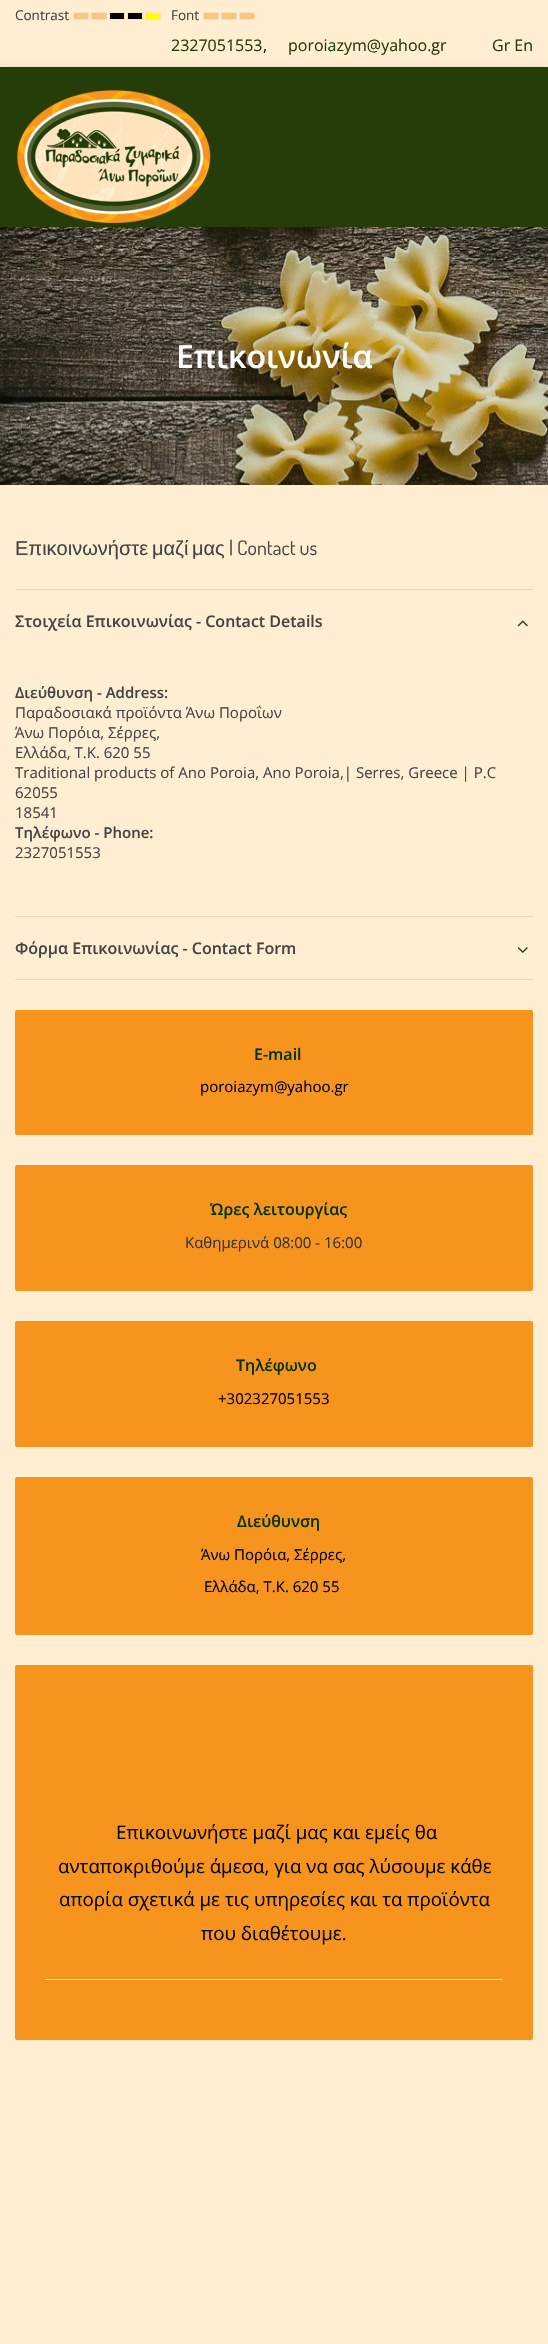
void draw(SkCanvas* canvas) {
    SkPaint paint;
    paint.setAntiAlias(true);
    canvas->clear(0xFFFFEED2);
    SkFont font1(fontMgr->matchFamilyStyle("Open Sans", SkFontStyle::Normal()), 13.5f);
    font1.setSubpixel(true);
    paint.setColor(0xFF444444);
    canvas->drawString("Contrast", 15, 20, font1, paint);
    paint.setColor(0xFFFBC380);
    canvas->drawRect(SkRect::MakeXYWH(73.5f, 12.5f, 15, 7), paint);
    paint.setStyle(SkPaint::kStroke_Style);
    paint.setStrokeWidth(1);
    paint.setColor(0xFFFFE3B6);
    canvas->drawRect(SkRect::MakeXYWH(73.5f, 12.5f, 15, 7), paint);
    paint.setStyle(SkPaint::kFill_Style);
    paint.setColor(0xFFFBC380);
    canvas->drawRect(SkRect::MakeXYWH(91.5f, 12.5f, 15, 7), paint);
    paint.setStyle(SkPaint::kStroke_Style);
    paint.setColor(0xFFFFE3B6);
    canvas->drawRect(SkRect::MakeXYWH(91.5f, 12.5f, 15, 7), paint);
    paint.setStyle(SkPaint::kFill_Style);
    paint.setColor(0xFF000000);
    canvas->drawRect(SkRect::MakeXYWH(109.5f, 12.5f, 15, 7), paint);
    paint.setStyle(SkPaint::kStroke_Style);
    paint.setColor(0xFFFFE3B6);
    canvas->drawRect(SkRect::MakeXYWH(109.5f, 12.5f, 15, 7), paint);
    paint.setStyle(SkPaint::kFill_Style);
    paint.setColor(0xFF000000);
    canvas->drawRect(SkRect::MakeXYWH(127.5f, 12.5f, 15, 7), paint);
    paint.setStyle(SkPaint::kStroke_Style);
    paint.setColor(0xFFFFE3B6);
    canvas->drawRect(SkRect::MakeXYWH(127.5f, 12.5f, 15, 7), paint);
    paint.setStyle(SkPaint::kFill_Style);
    paint.setColor(0xFFFFFF00);
    canvas->drawRect(SkRect::MakeXYWH(145.5f, 12.5f, 15, 7), paint);
    paint.setStyle(SkPaint::kStroke_Style);
    paint.setColor(0xFFFFE3B6);
    canvas->drawRect(SkRect::MakeXYWH(145.5f, 12.5f, 15, 7), paint);
    paint.setStyle(SkPaint::kFill_Style);
    paint.setColor(0xFF444444);
    canvas->drawString("Font", 171, 20, font1, paint);
    paint.setColor(0xFFFBC380);
    canvas->drawRect(SkRect::MakeXYWH(203.5f, 12.5f, 15, 7), paint);
    paint.setStyle(SkPaint::kStroke_Style);
    paint.setColor(0xFFFFE3B6);
    canvas->drawRect(SkRect::MakeXYWH(203.5f, 12.5f, 15, 7), paint);
    paint.setStyle(SkPaint::kFill_Style);
    paint.setColor(0xFFFBC380);
    canvas->drawRect(SkRect::MakeXYWH(221.5f, 12.5f, 15, 7), paint);
    paint.setStyle(SkPaint::kStroke_Style);
    paint.setColor(0xFFFFE3B6);
    canvas->drawRect(SkRect::MakeXYWH(221.5f, 12.5f, 15, 7), paint);
    paint.setStyle(SkPaint::kFill_Style);
    paint.setColor(0xFFFBC380);
    canvas->drawRect(SkRect::MakeXYWH(239.5f, 12.5f, 15, 7), paint);
    paint.setStyle(SkPaint::kStroke_Style);
    paint.setColor(0xFFFFE3B6);
    canvas->drawRect(SkRect::MakeXYWH(239.5f, 12.5f, 15, 7), paint);
    SkFont font2(fontMgr->matchFamilyStyle("Open Sans", SkFontStyle::Normal()), 16);
    font2.setSubpixel(true);
    paint.setStyle(SkPaint::kFill_Style);
    paint.setColor(0xFF243D09);
    canvas->drawString("2327051553", 171, 51, font2, paint);
    paint.setColor(0xFF000000);
    canvas->drawString(",", 263, 51, font2, paint);
    paint.setColor(0xFF243D09);
    canvas->drawString("poroiazym@yahoo.gr", 288, 51, font2, paint);
    canvas->drawString("Gr Εn", 492, 51, font2, paint);
    paint.setColor(0x1A000000);
    paint.setMaskFilter(SkMaskFilter::MakeBlur(kNormal_SkBlurStyle, 3.5f));
    canvas->drawRect(SkRect::MakeXYWH(0, 67, 548, 170), paint);
    paint.setMaskFilter(nullptr);
    paint.setColor(0xFF243D09);
    canvas->drawRect(SkRect::MakeXYWH(0, 67, 548, 160), paint);
    canvas->drawImageRect(SkImages::DeferredFromEncodedData(SkData::MakeFromFileName("img1.png")), SkRect::MakeXYWH(17, 90, 194, 133), SkSamplingOptions());
    canvas->drawImageRect(SkImages::DeferredFromEncodedData(SkData::MakeFromFileName("img2.png")), SkRect::MakeXYWH(0, 227, 548, 258), SkSamplingOptions());
    SkFont font3(fontMgr->matchFamilyStyle("Open Sans", SkFontStyle(600, SkFontStyle::kNormal_Width, SkFontStyle::kUpright_Slant)), 32);
    font3.setSubpixel(true);
    paint.setColor(0xFFFFFFFF);
    canvas->drawString("Επικοινωνία", 176, 368, font3, paint);
    SkFont font4(fontMgr->matchFamilyStyle("Liberation Sans", SkFontStyle::Normal()), 20);
    font4.setSubpixel(true);
    paint.setColor(0xFF444444);
    canvas->drawString("Επικοινωνήστε", 15, 555, font4, paint);
    canvas->drawString("μαζί", 152, 555, font4, paint);
    canvas->drawString("μας", 192, 555, font4, paint);
    SkFont font5(fontMgr->matchFamilyStyle("Dosis", SkFontStyle::Normal()), 20);
    font5.setSubpixel(true);
    canvas->drawString("| Contact us", 229, 555, font5, paint);
    paint.setColor(0xFFE8D9BF);
    canvas->drawRect(SkRect::MakeXYWH(15, 589, 518, 1), paint);
    SkFont font6(fontMgr->matchFamilyStyle("Open Sans", SkFontStyle(600, SkFontStyle::kNormal_Width, SkFontStyle::kUpright_Slant)), 16);
    font6.setSubpixel(true);
    paint.setColor(0xFF444444);
    canvas->drawString("Στοιχεία Επικοινωνίας - Contact Details", 15, 627, font6, paint);
    canvas->drawImageRect(SkImages::DeferredFromEncodedData(SkData::MakeFromFileName("img3.png")), SkRect::MakeXYWH(517, 620, 11, 7), SkSamplingOptions());
    SkFont font7(fontMgr->matchFamilyStyle("Open Sans", SkFontStyle(600, SkFontStyle::kNormal_Width, SkFontStyle::kUpright_Slant)), 15);
    font7.setSubpixel(true);
    canvas->drawString("Διεύθυνση - Address:", 15, 698, font7, paint);
    SkFont font8(fontMgr->matchFamilyStyle("Open Sans", SkFontStyle::Normal()), 15);
    font8.setSubpixel(true);
    canvas->drawString("Παραδοσιακά προϊόντα Άνω Ποροΐων", 15, 718, font8, paint);
    canvas->drawString("Άνω Πορόια, Σέρρες,", 15, 738, font8, paint);
    canvas->drawString("Ελλάδα, Τ.Κ. 620 55", 15, 758, font8, paint);
    canvas->drawString("Traditional products of Ano Poroia, Ano Poroia,| Serres, Greece | P.C", 15, 778, font8, paint);
    canvas->drawString("62055", 15, 798, font8, paint);
    canvas->drawString("18541", 15, 818, font8, paint);
    canvas->drawString("Τηλέφωνο - Phone:", 15, 838, font7, paint);
    canvas->drawString("2327051553", 15, 858, font8, paint);
    paint.setColor(0xFFE8D9BF);
    canvas->drawRect(SkRect::MakeXYWH(15, 916, 518, 1), paint);
    canvas->drawRect(SkRect::MakeXYWH(15, 979, 518, 1), paint);
    paint.setColor(0xFF444444);
    canvas->drawString("Φόρμα Επικοινωνίας - Contact Form", 15, 954, font6, paint);
    canvas->drawImageRect(SkImages::DeferredFromEncodedData(SkData::MakeFromFileName("img4.png")), SkRect::MakeXYWH(517, 947, 11, 6), SkSamplingOptions());
    paint.setColor(0xFFF7941E);
    canvas->drawRoundRect(SkRect::MakeXYWH(15, 1010, 518, 125), 2, 2, paint);
    paint.setColor(0xFF003300);
    canvas->drawString("E-mail", 254, 1060, font6, paint);
    paint.setColor(0xFF000000);
    canvas->drawString("poroiazym@yahoo.gr", 200, 1092, font8, paint);
    paint.setColor(0xFFF7941E);
    canvas->drawRoundRect(SkRect::MakeXYWH(15, 1165, 518, 126), 2, 2, paint);
    paint.setColor(0xFF003300);
    canvas->drawString("Ώρες λειτουργίας", 210, 1215, font6, paint);
    paint.setColor(0xFF333333);
    canvas->drawString("Καθημερινά 08:00 - 16:00", 185, 1248, font8, paint);
    paint.setColor(0xFFF7941E);
    canvas->drawRoundRect(SkRect::MakeXYWH(15, 1321, 518, 126), 2, 2, paint);
    paint.setColor(0xFF003300);
    canvas->drawString("Τηλέφωνο", 236, 1371, font6, paint);
    paint.setColor(0xFF000000);
    canvas->drawString("+302327051553", 218, 1404, font8, paint);
    paint.setColor(0xFFF7941E);
    canvas->drawRoundRect(SkRect::MakeXYWH(15, 1477, 518, 158), 2, 2, paint);
    paint.setColor(0xFF003300);
    canvas->drawString("Διεύθυνση", 237, 1527, font6, paint);
    paint.setColor(0xFF000000);
    canvas->drawString("Άνω Πορόια, Σέρρες,", 201, 1560, font8, paint);
    canvas->drawString("Ελλάδα, Τ.Κ. 620 55", 204, 1592, font8, paint);
    paint.setColor(0xFFF7941E);
    canvas->drawRoundRect(SkRect::MakeXYWH(15, 1665, 518, 375), 2, 2, paint);
    SkFont font9(fontMgr->matchFamilyStyle("Open Sans", SkFontStyle::Normal()), 18.7f);
    font9.setSubpixel(true);
    paint.setColor(0xFF000000);
    canvas->drawString("Επικοινωνήστε μαζί μας και εμείς θα", 116, 1839, font9, paint);
    canvas->drawString("ανταποκριθούμε άμεσα, για να σας λύσουμε κάθε", 58, 1873, font9, paint);
    canvas->drawString("απορία σχετικά με τις υπηρεσίες και τα προϊόντα", 59, 1906, font9, paint);
    canvas->drawString("που διαθέτουμε.", 201, 1940, font9, paint);
    paint.setColor(0xFFFFE3B6);
    canvas->drawRect(SkRect::MakeXYWH(45, 1979, 458, 1), paint);
}
